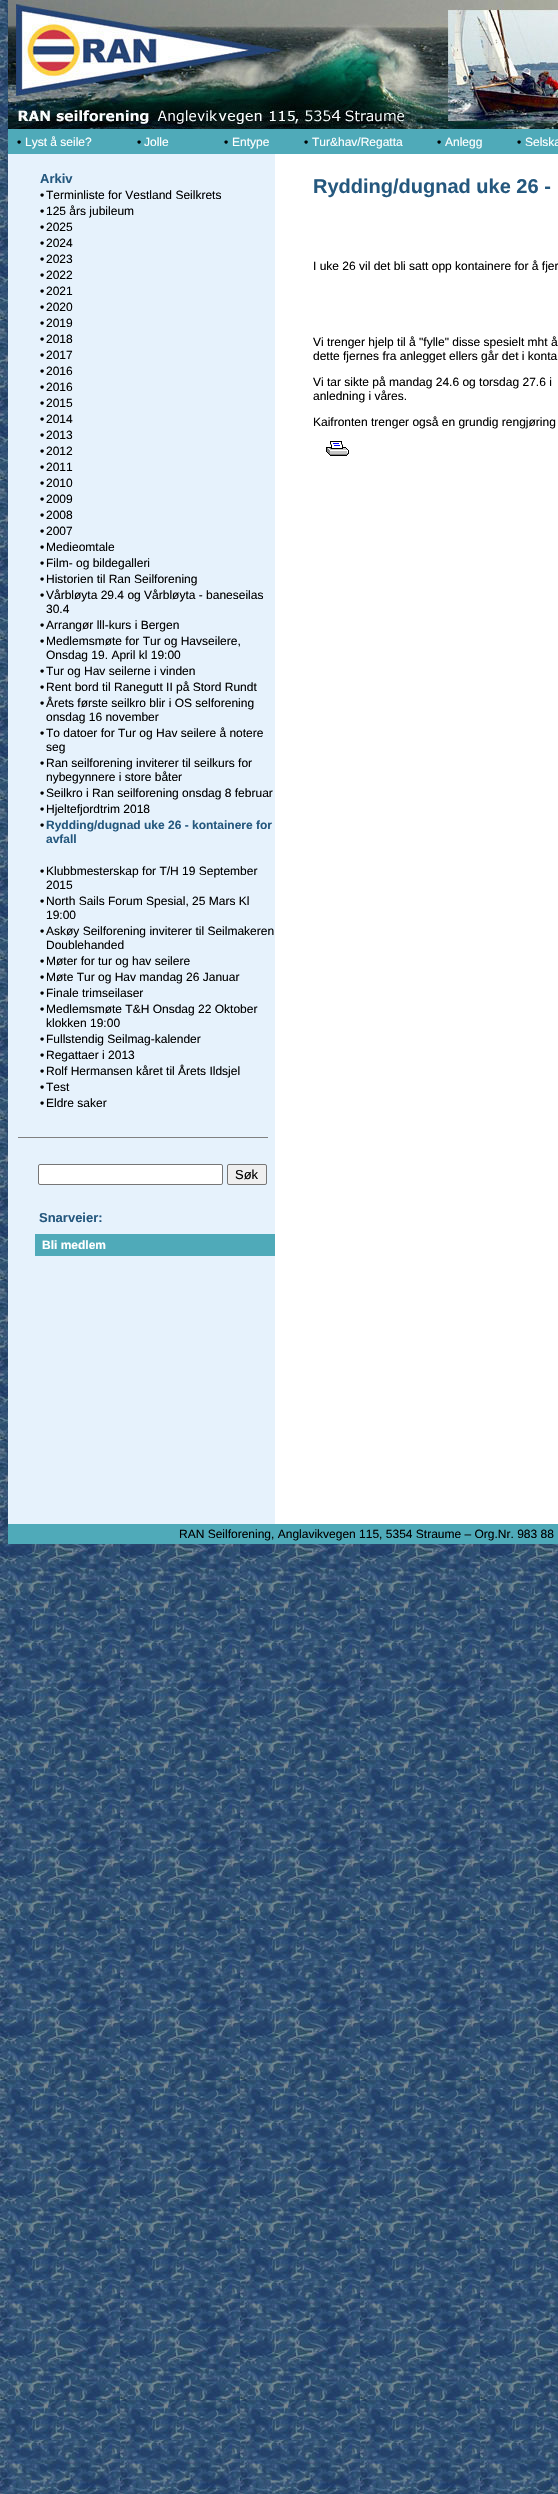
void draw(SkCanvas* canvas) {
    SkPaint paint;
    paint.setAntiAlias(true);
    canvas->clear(0xFFFFFFFF);
    canvas->drawImageRect(SkImages::DeferredFromEncodedData(SkData::MakeFromFileName("img1.png")), SkRect::MakeXYWH(0, 0, 558, 2494), SkSamplingOptions());
    paint.setColor(0xFFFFFFFF);
    canvas->drawRect(SkRect::MakeXYWH(275, 154, 283, 1370), paint);
    paint.setColor(0xFFE6F2FC);
    canvas->drawRect(SkRect::MakeXYWH(8, 154, 267, 1370), paint);
    canvas->drawImageRect(SkImages::DeferredFromEncodedData(SkData::MakeFromFileName("img2.png")), SkRect::MakeXYWH(8, 0, 550, 129), SkSamplingOptions());
    paint.setColor(0xFF4FAAB9);
    canvas->drawRect(SkRect::MakeXYWH(8, 129, 550, 25), paint);
    SkFont font1(fontMgr->matchFamilyStyle("Liberation Sans", SkFontStyle::Normal()), 12);
    font1.setSubpixel(true);
    paint.setColor(0xFF000000);
    canvas->drawString("•", 17, 146, font1, paint);
    paint.setColor(0xFFFFFFFF);
    canvas->drawString("Lyst å seile?", 25, 146, font1, paint);
    paint.setColor(0xFF000000);
    canvas->drawString("•", 137, 146, font1, paint);
    paint.setColor(0xFFFFFFFF);
    canvas->drawString("Jolle", 144, 146, font1, paint);
    paint.setColor(0xFF000000);
    canvas->drawString("•", 224, 146, font1, paint);
    paint.setColor(0xFFFFFFFF);
    canvas->drawString("Entype", 232, 146, font1, paint);
    paint.setColor(0xFF000000);
    canvas->drawString("•", 304, 146, font1, paint);
    paint.setColor(0xFFFFFFFF);
    canvas->drawString("Tur&hav/Regatta", 312, 146, font1, paint);
    paint.setColor(0xFF000000);
    canvas->drawString("•", 437, 146, font1, paint);
    paint.setColor(0xFFFFFFFF);
    canvas->drawString("Anlegg", 445, 146, font1, paint);
    paint.setColor(0xFF000000);
    canvas->drawString("•", 517, 146, font1, paint);
    paint.setColor(0xFFFFFFFF);
    canvas->drawString("Selska", 525, 146, font1, paint);
    SkFont font2(fontMgr->matchFamilyStyle("Liberation Sans", SkFontStyle::Bold()), 13);
    font2.setSubpixel(true);
    paint.setColor(0xFF25587E);
    canvas->drawString("Arkiv", 40, 183, font2, paint);
    paint.setColor(0xFF000000);
    canvas->drawString("•", 40, 199, font1, paint);
    canvas->drawString("Terminliste for Vestland Seilkrets", 46, 199, font1, paint);
    canvas->drawString("•", 40, 215, font1, paint);
    canvas->drawString("125 års jubileum", 46, 215, font1, paint);
    canvas->drawString("•", 40, 231, font1, paint);
    canvas->drawString("2025", 46, 231, font1, paint);
    canvas->drawString("•", 40, 247, font1, paint);
    canvas->drawString("2024", 46, 247, font1, paint);
    canvas->drawString("•", 40, 263, font1, paint);
    canvas->drawString("2023", 46, 263, font1, paint);
    canvas->drawString("•", 40, 279, font1, paint);
    canvas->drawString("2022", 46, 279, font1, paint);
    canvas->drawString("•", 40, 295, font1, paint);
    canvas->drawString("2021", 46, 295, font1, paint);
    canvas->drawString("•", 40, 311, font1, paint);
    canvas->drawString("2020", 46, 311, font1, paint);
    canvas->drawString("•", 40, 327, font1, paint);
    canvas->drawString("2019", 46, 327, font1, paint);
    canvas->drawString("•", 40, 343, font1, paint);
    canvas->drawString("2018", 46, 343, font1, paint);
    canvas->drawString("•", 40, 359, font1, paint);
    canvas->drawString("2017", 46, 359, font1, paint);
    canvas->drawString("•", 40, 375, font1, paint);
    canvas->drawString("2016", 46, 375, font1, paint);
    canvas->drawString("•", 40, 391, font1, paint);
    canvas->drawString("2016", 46, 391, font1, paint);
    canvas->drawString("•", 40, 407, font1, paint);
    canvas->drawString("2015", 46, 407, font1, paint);
    canvas->drawString("•", 40, 423, font1, paint);
    canvas->drawString("2014", 46, 423, font1, paint);
    canvas->drawString("•", 40, 439, font1, paint);
    canvas->drawString("2013", 46, 439, font1, paint);
    canvas->drawString("•", 40, 455, font1, paint);
    canvas->drawString("2012", 46, 455, font1, paint);
    canvas->drawString("•", 40, 471, font1, paint);
    canvas->drawString("2011", 46, 471, font1, paint);
    canvas->drawString("•", 40, 487, font1, paint);
    canvas->drawString("2010", 46, 487, font1, paint);
    canvas->drawString("•", 40, 503, font1, paint);
    canvas->drawString("2009", 46, 503, font1, paint);
    canvas->drawString("•", 40, 519, font1, paint);
    canvas->drawString("2008", 46, 519, font1, paint);
    canvas->drawString("•", 40, 535, font1, paint);
    canvas->drawString("2007", 46, 535, font1, paint);
    canvas->drawString("•", 40, 551, font1, paint);
    canvas->drawString("Medieomtale", 46, 551, font1, paint);
    canvas->drawString("•", 40, 567, font1, paint);
    canvas->drawString("Film- og bildegalleri", 46, 567, font1, paint);
    canvas->drawString("•", 40, 583, font1, paint);
    canvas->drawString("Historien til Ran Seilforening", 46, 583, font1, paint);
    canvas->drawString("•", 40, 599, font1, paint);
    canvas->drawString("Vårbløyta 29.4 og Vårbløyta - baneseilas", 46, 599, font1, paint);
    canvas->drawString("30.4", 46, 613, font1, paint);
    canvas->drawString("•", 40, 629, font1, paint);
    canvas->drawString("Arrangør lll-kurs i Bergen", 46, 629, font1, paint);
    canvas->drawString("•", 40, 645, font1, paint);
    canvas->drawString("Medlemsmøte for Tur og Havseilere,", 46, 645, font1, paint);
    canvas->drawString("Onsdag 19. April kl 19:00", 46, 659, font1, paint);
    canvas->drawString("•", 40, 675, font1, paint);
    canvas->drawString("Tur og Hav seilerne i vinden", 46, 675, font1, paint);
    canvas->drawString("•", 40, 691, font1, paint);
    canvas->drawString("Rent bord til Ranegutt II på Stord Rundt", 46, 691, font1, paint);
    canvas->drawString("•", 40, 707, font1, paint);
    canvas->drawString("Årets første seilkro blir i OS selforening", 46, 707, font1, paint);
    canvas->drawString("onsdag 16 november", 46, 721, font1, paint);
    canvas->drawString("•", 40, 737, font1, paint);
    canvas->drawString("To datoer for Tur og Hav seilere å notere", 46, 737, font1, paint);
    canvas->drawString("seg", 46, 751, font1, paint);
    canvas->drawString("•", 40, 767, font1, paint);
    canvas->drawString("Ran seilforening inviterer til seilkurs for", 46, 767, font1, paint);
    canvas->drawString("nybegynnere i store båter", 46, 781, font1, paint);
    canvas->drawString("•", 40, 797, font1, paint);
    canvas->drawString("Seilkro i Ran seilforening onsdag 8 februar", 46, 797, font1, paint);
    canvas->drawString("•", 40, 813, font1, paint);
    canvas->drawString("Hjeltefjordtrim 2018", 46, 813, font1, paint);
    canvas->drawString("•", 40, 829, font1, paint);
    SkFont font3(fontMgr->matchFamilyStyle("Liberation Sans", SkFontStyle::Bold()), 12);
    font3.setSubpixel(true);
    paint.setColor(0xFF25587E);
    canvas->drawString("Rydding/dugnad uke 26 - kontainere for", 46, 829, font3, paint);
    canvas->drawString("avfall", 46, 843, font3, paint);
    paint.setColor(0xFF000000);
    canvas->drawString("•", 40, 875, font1, paint);
    canvas->drawString("Klubbmesterskap for T/H 19 September", 46, 875, font1, paint);
    canvas->drawString("2015", 46, 889, font1, paint);
    canvas->drawString("•", 40, 905, font1, paint);
    canvas->drawString("North Sails Forum Spesial, 25 Mars Kl", 46, 905, font1, paint);
    canvas->drawString("19:00", 46, 919, font1, paint);
    canvas->drawString("•", 40, 935, font1, paint);
    canvas->drawString("Askøy Seilforening inviterer til Seilmakeren", 46, 935, font1, paint);
    canvas->drawString("Doublehanded", 46, 949, font1, paint);
    canvas->drawString("•", 40, 965, font1, paint);
    canvas->drawString("Møter for tur og hav seilere", 46, 965, font1, paint);
    canvas->drawString("•", 40, 981, font1, paint);
    canvas->drawString("Møte Tur og Hav mandag 26 Januar", 46, 981, font1, paint);
    canvas->drawString("•", 40, 997, font1, paint);
    canvas->drawString("Finale trimseilaser", 46, 997, font1, paint);
    canvas->drawString("•", 40, 1013, font1, paint);
    canvas->drawString("Medlemsmøte T&H Onsdag 22 Oktober", 46, 1013, font1, paint);
    canvas->drawString("klokken 19:00", 46, 1027, font1, paint);
    canvas->drawString("•", 40, 1043, font1, paint);
    canvas->drawString("Fullstendig Seilmag-kalender", 46, 1043, font1, paint);
    canvas->drawString("•", 40, 1059, font1, paint);
    canvas->drawString("Regattaer i 2013", 46, 1059, font1, paint);
    canvas->drawString("•", 40, 1075, font1, paint);
    canvas->drawString("Rolf Hermansen kåret til Årets Ildsjel", 46, 1075, font1, paint);
    canvas->drawString("•", 40, 1091, font1, paint);
    canvas->drawString("Test", 46, 1091, font1, paint);
    canvas->drawString("•", 40, 1107, font1, paint);
    canvas->drawString("Eldre saker", 46, 1107, font1, paint);
    paint.setColor(0xFF808080);
    canvas->drawRect(SkRect::MakeXYWH(18, 1137, 250, 1), paint);
    paint.setColor(0xFFFFFFFF);
    canvas->drawRoundRect(SkRect::MakeXYWH(38.5f, 1164.5f, 184, 20), 1.5f, 1.5f, paint);
    paint.setStyle(SkPaint::kStroke_Style);
    paint.setStrokeWidth(1);
    paint.setColor(0xFF767676);
    canvas->drawRoundRect(SkRect::MakeXYWH(38.5f, 1164.5f, 184, 20), 1.5f, 1.5f, paint);
    paint.setStyle(SkPaint::kFill_Style);
    paint.setColor(0xFFEFEFEF);
    canvas->drawRoundRect(SkRect::MakeXYWH(227.5f, 1164.5f, 39, 20), 1.5f, 1.5f, paint);
    paint.setStyle(SkPaint::kStroke_Style);
    paint.setColor(0xFF767676);
    canvas->drawRoundRect(SkRect::MakeXYWH(227.5f, 1164.5f, 39, 20), 1.5f, 1.5f, paint);
    SkFont font4(fontMgr->matchFamilyStyle("Liberation Sans", SkFontStyle::Normal()), 13);
    font4.setSubpixel(true);
    paint.setStyle(SkPaint::kFill_Style);
    paint.setColor(0xFF000000);
    canvas->drawString("Søk", 235, 1179, font4, paint);
    paint.setColor(0xFF25587E);
    canvas->drawString("Snarveier:", 39, 1222, font2, paint);
    paint.setColor(0xFF4FAAB9);
    canvas->drawRect(SkRect::MakeXYWH(35, 1234, 240, 22), paint);
    paint.setColor(0xFFFFFFFF);
    canvas->drawString("Bli medlem", 42, 1249, font3, paint);
    SkFont font5(fontMgr->matchFamilyStyle("Liberation Sans", SkFontStyle::Bold()), 20);
    font5.setSubpixel(true);
    paint.setColor(0xFF25587E);
    canvas->drawString("Rydding/dugnad uke 26 -", 313, 193, font5, paint);
    paint.setColor(0xFF000000);
    canvas->drawString("I uke 26 vil det bli satt opp kontainere for å fjer", 313, 270, font1, paint);
    canvas->drawString("Vi trenger hjelp til å \"fylle\" disse spesielt mht å", 313, 346, font1, paint);
    canvas->drawString("dette fjernes fra anlegget ellers går det i konta", 313, 360, font1, paint);
    canvas->drawString("Vi tar sikte på mandag 24.6 og torsdag 27.6 i", 313, 386, font1, paint);
    canvas->drawString("anledning i våres.", 313, 400, font1, paint);
    canvas->drawString("Kaifronten trenger også en grundig rengjøring", 313, 426, font1, paint);
    canvas->drawImageRect(SkImages::DeferredFromEncodedData(SkData::MakeFromFileName("img3.png")), SkRect::MakeXYWH(326, 441, 23, 15), SkSamplingOptions());
    paint.setColor(0xFF4FAAB9);
    canvas->drawRect(SkRect::MakeXYWH(8, 1524, 550, 20), paint);
    paint.setColor(0xFF000000);
    canvas->drawString("RAN Seilforening, Anglavikvegen 115, 5354 Straume – Org.Nr. 983 88", 179, 1538, font1, paint);
}
